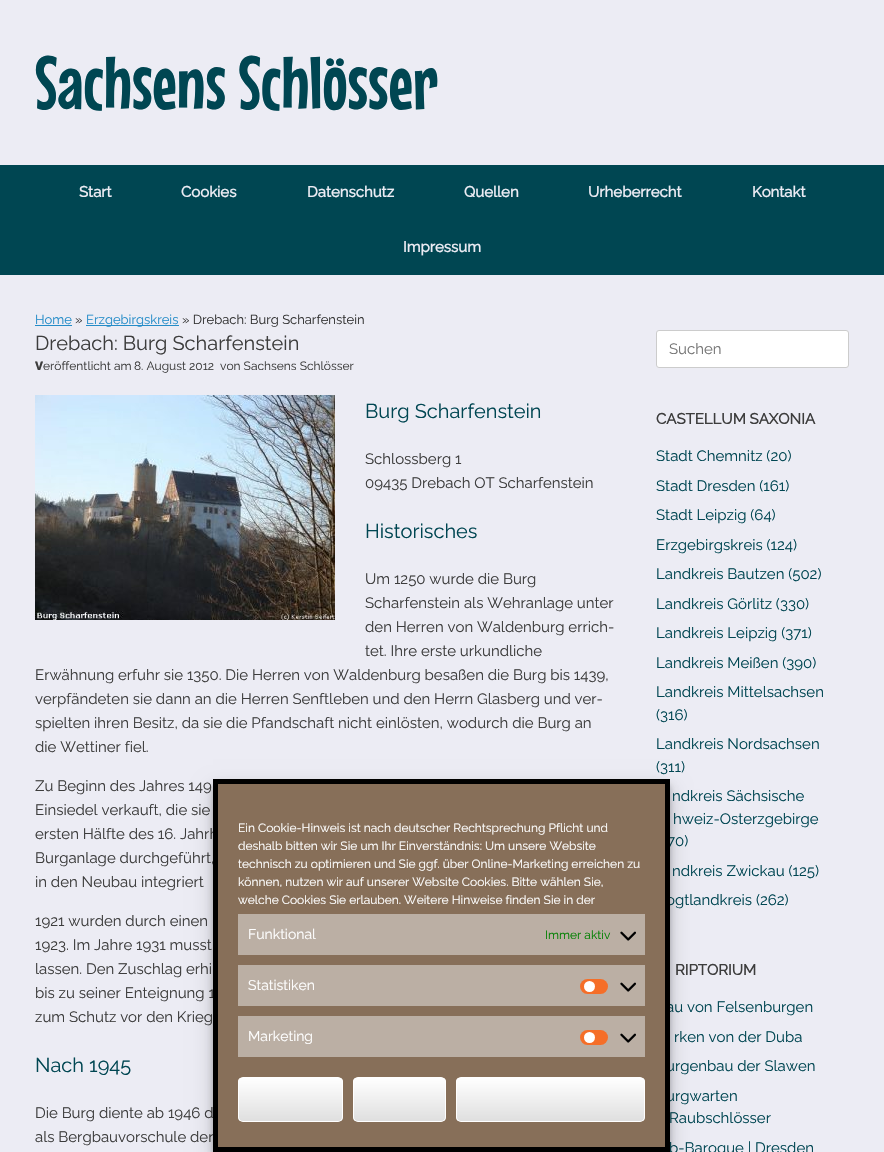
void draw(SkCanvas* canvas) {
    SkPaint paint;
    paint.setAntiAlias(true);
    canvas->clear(0xFFECECF4);
    SkFont font1(fontMgr->matchFamilyStyle("Mouse Memoirs", SkFontStyle::Normal()), 75);
    font1.setSubpixel(true);
    paint.setColor(0xFF004652);
    canvas->drawString("Sachsens Schlösser", 35, 109, font1, paint);
    canvas->drawRect(SkRect::MakeXYWH(0, 165, 884, 110), paint);
    SkFont font2(fontMgr->matchFamilyStyle("Raleway", SkFontStyle::Bold()), 15);
    font2.setSubpixel(true);
    paint.setColor(0xFFECECF4);
    canvas->drawString("Start", 79, 197, font2, paint);
    canvas->drawString("Cookies", 181, 197, font2, paint);
    canvas->drawString("Datenschutz", 307, 197, font2, paint);
    canvas->drawString("Quellen", 464, 197, font2, paint);
    canvas->drawString("Urheberrecht", 588, 197, font2, paint);
    canvas->drawString("Kontakt", 752, 197, font2, paint);
    canvas->drawString("Impressum", 403, 252, font2, paint);
    SkFont font3(fontMgr->matchFamilyStyle("Raleway", SkFontStyle(100, SkFontStyle::kNormal_Width, SkFontStyle::kUpright_Slant)), 13);
    font3.setSubpixel(true);
    paint.setColor(0xFF248CC8);
    canvas->drawString("Home", 35, 324, font3, paint);
    canvas->drawRect(SkRect::MakeXYWH(35, 325, 37, 1), paint);
    paint.setColor(0xFF333333);
    canvas->drawString("»", 75, 324, font3, paint);
    paint.setColor(0xFF248CC8);
    canvas->drawRect(SkRect::MakeXYWH(86, 325, 93, 1), paint);
    canvas->drawString("Erzgebirgskreis", 86, 324, font3, paint);
    paint.setColor(0xFF333333);
    canvas->drawString("» Drebach: Burg Scharfenstein", 182, 324, font3, paint);
    SkFont font4(fontMgr->matchFamilyStyle("Raleway", SkFontStyle(100, SkFontStyle::kNormal_Width, SkFontStyle::kUpright_Slant)), 20);
    font4.setSubpixel(true);
    paint.setColor(0xFF3D3D3D);
    canvas->drawString("Drebach: Burg Scharfenstein", 35, 350, font4, paint);
    SkFont font5(fontMgr->matchFamilyStyle("Noto Sans", SkFontStyle(800, SkFontStyle::kNormal_Width, SkFontStyle::kUpright_Slant)), 12);
    font5.setSubpixel(true);
    canvas->drawString("V", 35, 370, font5, paint);
    SkFont font6(fontMgr->matchFamilyStyle("Raleway", SkFontStyle(100, SkFontStyle::kNormal_Width, SkFontStyle::kUpright_Slant)), 12);
    font6.setSubpixel(true);
    canvas->drawString("eröffentlicht am", 43, 370, font6, paint);
    canvas->drawString("8. August 2012", 134, 370, font6, paint);
    canvas->drawString("von Sachsens Schlösser", 220, 370, font6, paint);
    canvas->drawImageRect(SkImages::DeferredFromEncodedData(SkData::MakeFromFileName("img1.png")), SkRect::MakeXYWH(35, 395, 300, 225), SkSamplingOptions());
    paint.setColor(0xFF004652);
    canvas->drawString("Burg Scharfenstein", 365, 418, font4, paint);
    SkFont font7(fontMgr->matchFamilyStyle("Raleway", SkFontStyle(100, SkFontStyle::kNormal_Width, SkFontStyle::kUpright_Slant)), 15);
    font7.setSubpixel(true);
    paint.setColor(0xFF3D3D3D);
    canvas->drawString("Schlossberg 1", 365, 464, font7, paint);
    canvas->drawString("09435 Drebach OT Scharfenstein", 365, 488, font7, paint);
    paint.setColor(0xFF004652);
    canvas->drawString("Historisches", 365, 538, font4, paint);
    paint.setColor(0xFF3D3D3D);
    canvas->drawString("Um 1250 wurde die Burg", 365, 584, font7, paint);
    canvas->drawString("Scharfenstein als Wehranlage unter", 365, 608, font7, paint);
    canvas->drawString("den Herren von Waldenburg errich-", 365, 632, font7, paint);
    canvas->drawString("tet. Ihre erste urkundliche", 365, 656, font7, paint);
    canvas->drawString("Erwähnung erfuhr sie 1350. Die Herren von Waldenburg besaßen die Burg bis 1439,", 35, 680, font7, paint);
    canvas->drawString("verpfändeten sie dann an die Herren Senftleben und den Herrn Glasberg und ver-", 35, 704, font7, paint);
    canvas->drawString("spielten ihren Besitz, da sie die Pfandschaft nicht einlösten, wodurch die Burg an", 35, 728, font7, paint);
    canvas->drawString("die Wettiner fiel.", 35, 752, font7, paint);
    canvas->drawString("Zu Beginn des Jahres 149", 35, 791, font7, paint);
    canvas->drawString("Einsiedel verkauft, die sie", 35, 815, font7, paint);
    canvas->drawString("ersten Hälfte des 16. Jahrh", 35, 839, font7, paint);
    canvas->drawString("Burganlage durchgeführt,", 35, 863, font7, paint);
    canvas->drawString("in den Neubau integriert", 35, 887, font7, paint);
    canvas->drawString("1921 wurden durch einen", 35, 926, font7, paint);
    canvas->drawString("1923. Im Jahre 1931 musst", 35, 950, font7, paint);
    canvas->drawString("lassen. Den Zuschlag erhi", 35, 974, font7, paint);
    canvas->drawString("bis zu seiner Enteignung 1", 35, 998, font7, paint);
    canvas->drawString("zum Schutz vor den Krieg", 35, 1022, font7, paint);
    paint.setColor(0xFF004652);
    canvas->drawString("Nach 1945", 35, 1072, font4, paint);
    paint.setColor(0xFF3D3D3D);
    canvas->drawString("Die Burg diente ab 1946 d", 35, 1118, font7, paint);
    canvas->drawString("als Bergbauvorschule der", 35, 1142, font7, paint);
    paint.setColor(0xFFFFFFFF);
    canvas->drawRoundRect(SkRect::MakeXYWH(656.5f, 330.5f, 192, 37), 2.5f, 2.5f, paint);
    paint.setStyle(SkPaint::kStroke_Style);
    paint.setStrokeWidth(1);
    paint.setColor(0xFFCCCCCC);
    canvas->drawRoundRect(SkRect::MakeXYWH(656.5f, 330.5f, 192, 37), 2.5f, 2.5f, paint);
    paint.setStyle(SkPaint::kFill_Style);
    paint.setColor(0xFF757575);
    canvas->drawString("Suchen", 669, 354, font7, paint);
    paint.setColor(0xFF3D3D3D);
    canvas->drawString("CASTELLUM SAXONIA", 656, 424, font2, paint);
    paint.setColor(0xFF004652);
    canvas->drawString("Stadt Chemnitz (20)", 656, 461, font7, paint);
    canvas->drawString("Stadt Dresden (161)", 656, 491, font7, paint);
    canvas->drawString("Stadt Leipzig (64)", 656, 520, font7, paint);
    canvas->drawString("Erzgebirgskreis (124)", 656, 550, font7, paint);
    canvas->drawString("Landkreis Bautzen (502)", 656, 579, font7, paint);
    canvas->drawString("Landkreis Görlitz (330)", 656, 609, font7, paint);
    canvas->drawString("Landkreis Leipzig (371)", 656, 638, font7, paint);
    canvas->drawString("Landkreis Meißen (390)", 656, 668, font7, paint);
    canvas->drawString("Landkreis Mittelsachsen", 656, 697, font7, paint);
    canvas->drawString("(316)", 656, 720, font7, paint);
    canvas->drawString("Landkreis Nordsachsen", 656, 749, font7, paint);
    canvas->drawString("(311)", 656, 772, font7, paint);
    canvas->drawString("ndkreis Sächsische", 672, 801, font7, paint);
    canvas->drawString("hweiz-Osterzgebirge", 673, 824, font7, paint);
    canvas->drawString("70)", 667, 846, font7, paint);
    canvas->drawString("ndkreis Zwickau (125)", 672, 876, font7, paint);
    canvas->drawString("ogtlandkreis (262)", 666, 905, font7, paint);
    paint.setColor(0xFF3D3D3D);
    canvas->drawString("RIPTORIUM", 675, 975, font2, paint);
    paint.setColor(0xFF004652);
    canvas->drawString("au von Felsenburgen", 666, 1012, font7, paint);
    canvas->drawString("rken von der Duba", 674, 1042, font7, paint);
    canvas->drawString("urgenbau der Slawen", 666, 1071, font7, paint);
    canvas->drawString("urgwarten", 666, 1101, font7, paint);
    canvas->drawString("Raubschlösser", 669, 1123, font7, paint);
    canvas->drawString("b-Baroque | Dresden", 669, 1153, font7, paint);
    paint.setColor(0x3B000000);
    paint.setMaskFilter(SkMaskFilter::MakeBlur(kNormal_SkBlurStyle, 3));
    canvas->drawRect(SkRect::MakeXYWH(213, 785, 457, 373), paint);
    paint.setMaskFilter(nullptr);
    paint.setColor(0x30000000);
    paint.setMaskFilter(SkMaskFilter::MakeBlur(kNormal_SkBlurStyle, 10));
    canvas->drawRect(SkRect::MakeXYWH(213, 789, 457, 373), paint);
    paint.setMaskFilter(nullptr);
    paint.setColor(0xFF876F59);
    canvas->drawRect(SkRect::MakeXYWH(215.5f, 781.5f, 452, 368), paint);
    paint.setStyle(SkPaint::kStroke_Style);
    paint.setStrokeWidth(5);
    paint.setColor(0xFF000000);
    canvas->drawRect(SkRect::MakeXYWH(215.5f, 781.5f, 452, 368), paint);
    paint.setStyle(SkPaint::kFill_Style);
    paint.setColor(0xFFFFFFFF);
    canvas->drawString("Ein Cookie-Hinweis ist nach deutscher Rechtsprechung Pflicht und", 238, 832, font6, paint);
    canvas->drawString("deshalb bitten wir Sie um Ihr Einverständnis: Um unsere Website", 238, 850, font6, paint);
    canvas->drawString("technisch zu optimieren und Sie ggf. über Online-Marketing erreichen zu", 238, 868, font6, paint);
    canvas->drawString("können, nutzen wir auf unserer Website Cookies. Bitte wählen Sie,", 238, 886, font6, paint);
    canvas->drawString("welche Cookies Sie erlauben. Weitere Hinweise finden Sie in der", 238, 904, font6, paint);
    paint.setColor(0xFFBBAFA4);
    canvas->drawRect(SkRect::MakeXYWH(238, 914, 407, 41), paint);
    SkFont font8(fontMgr->matchFamilyStyle("Raleway", SkFontStyle(100, SkFontStyle::kNormal_Width, SkFontStyle::kUpright_Slant)), 14);
    font8.setSubpixel(true);
    paint.setColor(0xFFFFFFFF);
    canvas->drawString("Funktional", 248, 939, font8, paint);
    paint.setColor(0xFF008000);
    canvas->drawString("Immer aktiv", 545, 939, font6, paint);
    canvas->drawImageRect(SkImages::DeferredFromEncodedData(SkData::MakeFromFileName("img2.png")), SkRect::MakeXYWH(620, 931, 16, 10), SkSamplingOptions());
    paint.setColor(0xFFBBAFA4);
    canvas->drawRect(SkRect::MakeXYWH(238, 965, 407, 41), paint);
    paint.setColor(0xFFFFFFFF);
    canvas->drawString("Statistiken", 248, 990, font8, paint);
    paint.setColor(0xFFF56E28);
    canvas->drawRoundRect(SkRect::MakeXYWH(580, 979, 28, 15), 7.5f, 7.5f, paint);
    paint.setColor(0xFFFFFFFF);
    canvas->drawCircle(589.5f, 986.5f, 5.5f, paint);
    canvas->drawImageRect(SkImages::DeferredFromEncodedData(SkData::MakeFromFileName("img2.png")), SkRect::MakeXYWH(620, 982, 16, 10), SkSamplingOptions());
    paint.setColor(0xFFBBAFA4);
    canvas->drawRect(SkRect::MakeXYWH(238, 1016, 407, 41), paint);
    paint.setColor(0xFFFFFFFF);
    canvas->drawString("Marketing", 248, 1041, font8, paint);
    paint.setColor(0xFFF56E28);
    canvas->drawRoundRect(SkRect::MakeXYWH(580, 1030, 28, 15), 7.5f, 7.5f, paint);
    paint.setColor(0xFFFFFFFF);
    canvas->drawCircle(589.5f, 1037.5f, 5.5f, paint);
    canvas->drawImageRect(SkImages::DeferredFromEncodedData(SkData::MakeFromFileName("img2.png")), SkRect::MakeXYWH(620, 1033, 16, 10), SkSamplingOptions());
    canvas->save();
    canvas->clipPath(SkPathBuilder().moveTo(243, 1077).lineTo(338, 1077).cubicTo(341, 1077, 343, 1079, 343, 1082).lineTo(343, 1117).cubicTo(343, 1120, 341, 1122, 338, 1122).lineTo(243, 1122).cubicTo(240, 1122, 238, 1120, 238, 1117).lineTo(238, 1082).cubicTo(238, 1079, 240, 1077, 243, 1077).close().detach(), true);
    {
        const SkColor colors[] = {0xFFDFDFDF, 0xFFFFFFFF};
        const float stops[] = {0, 1};
        const SkPoint ends[] = {{239, 1121}, {239, 1078}};
        paint.setShader(SkGradientShader::MakeLinear(ends, colors, stops, 2, SkTileMode::kClamp));
        paint.setAlpha(255);
    }
    canvas->drawRect(SkRect::MakeXYWH(238, 1078, 105, 43), paint);
    canvas->restore();
    paint.setStyle(SkPaint::kStroke_Style);
    paint.setStrokeWidth(1);
    paint.setShader(nullptr);
    paint.setColor(0xFFFFFFFF);
    canvas->drawRoundRect(SkRect::MakeXYWH(238.5f, 1077.5f, 104, 44), 4.5f, 4.5f, paint);
    canvas->save();
    canvas->clipPath(SkPathBuilder().moveTo(358, 1077).lineTo(441, 1077).cubicTo(444, 1077, 446, 1079, 446, 1082).lineTo(446, 1117).cubicTo(446, 1120, 444, 1122, 441, 1122).lineTo(358, 1122).cubicTo(355, 1122, 353, 1120, 353, 1117).lineTo(353, 1082).cubicTo(353, 1079, 355, 1077, 358, 1077).close().detach(), true);
    paint.setStyle(SkPaint::kFill_Style);
    {
        const SkColor colors[] = {0xFFDFDFDF, 0xFFFFFFFF};
        const float stops[] = {0, 1};
        const SkPoint ends[] = {{354, 1121}, {354, 1078}};
        paint.setShader(SkGradientShader::MakeLinear(ends, colors, stops, 2, SkTileMode::kClamp));
        paint.setAlpha(255);
    }
    canvas->drawRect(SkRect::MakeXYWH(353, 1078, 93, 43), paint);
    canvas->restore();
    paint.setStyle(SkPaint::kStroke_Style);
    paint.setShader(nullptr);
    paint.setColor(0xFFFFFFFF);
    canvas->drawRoundRect(SkRect::MakeXYWH(353.5f, 1077.5f, 92, 44), 4.5f, 4.5f, paint);
    canvas->save();
    canvas->clipPath(SkPathBuilder().moveTo(461, 1077).lineTo(640, 1077).cubicTo(643, 1077, 645, 1079, 645, 1082).lineTo(645, 1117).cubicTo(645, 1120, 643, 1122, 640, 1122).lineTo(461, 1122).cubicTo(458, 1122, 456, 1120, 456, 1117).lineTo(456, 1082).cubicTo(456, 1079, 458, 1077, 461, 1077).close().detach(), true);
    paint.setStyle(SkPaint::kFill_Style);
    {
        const SkColor colors[] = {0xFFDFDFDF, 0xFFFFFFFF};
        const float stops[] = {0, 1};
        const SkPoint ends[] = {{457, 1121}, {457, 1078}};
        paint.setShader(SkGradientShader::MakeLinear(ends, colors, stops, 2, SkTileMode::kClamp));
        paint.setAlpha(255);
    }
    canvas->drawRect(SkRect::MakeXYWH(456, 1078, 189, 43), paint);
    canvas->restore();
    paint.setStyle(SkPaint::kStroke_Style);
    paint.setShader(nullptr);
    paint.setColor(0xFFFFFFFF);
    canvas->drawRoundRect(SkRect::MakeXYWH(456.5f, 1077.5f, 188, 44), 4.5f, 4.5f, paint);
}
